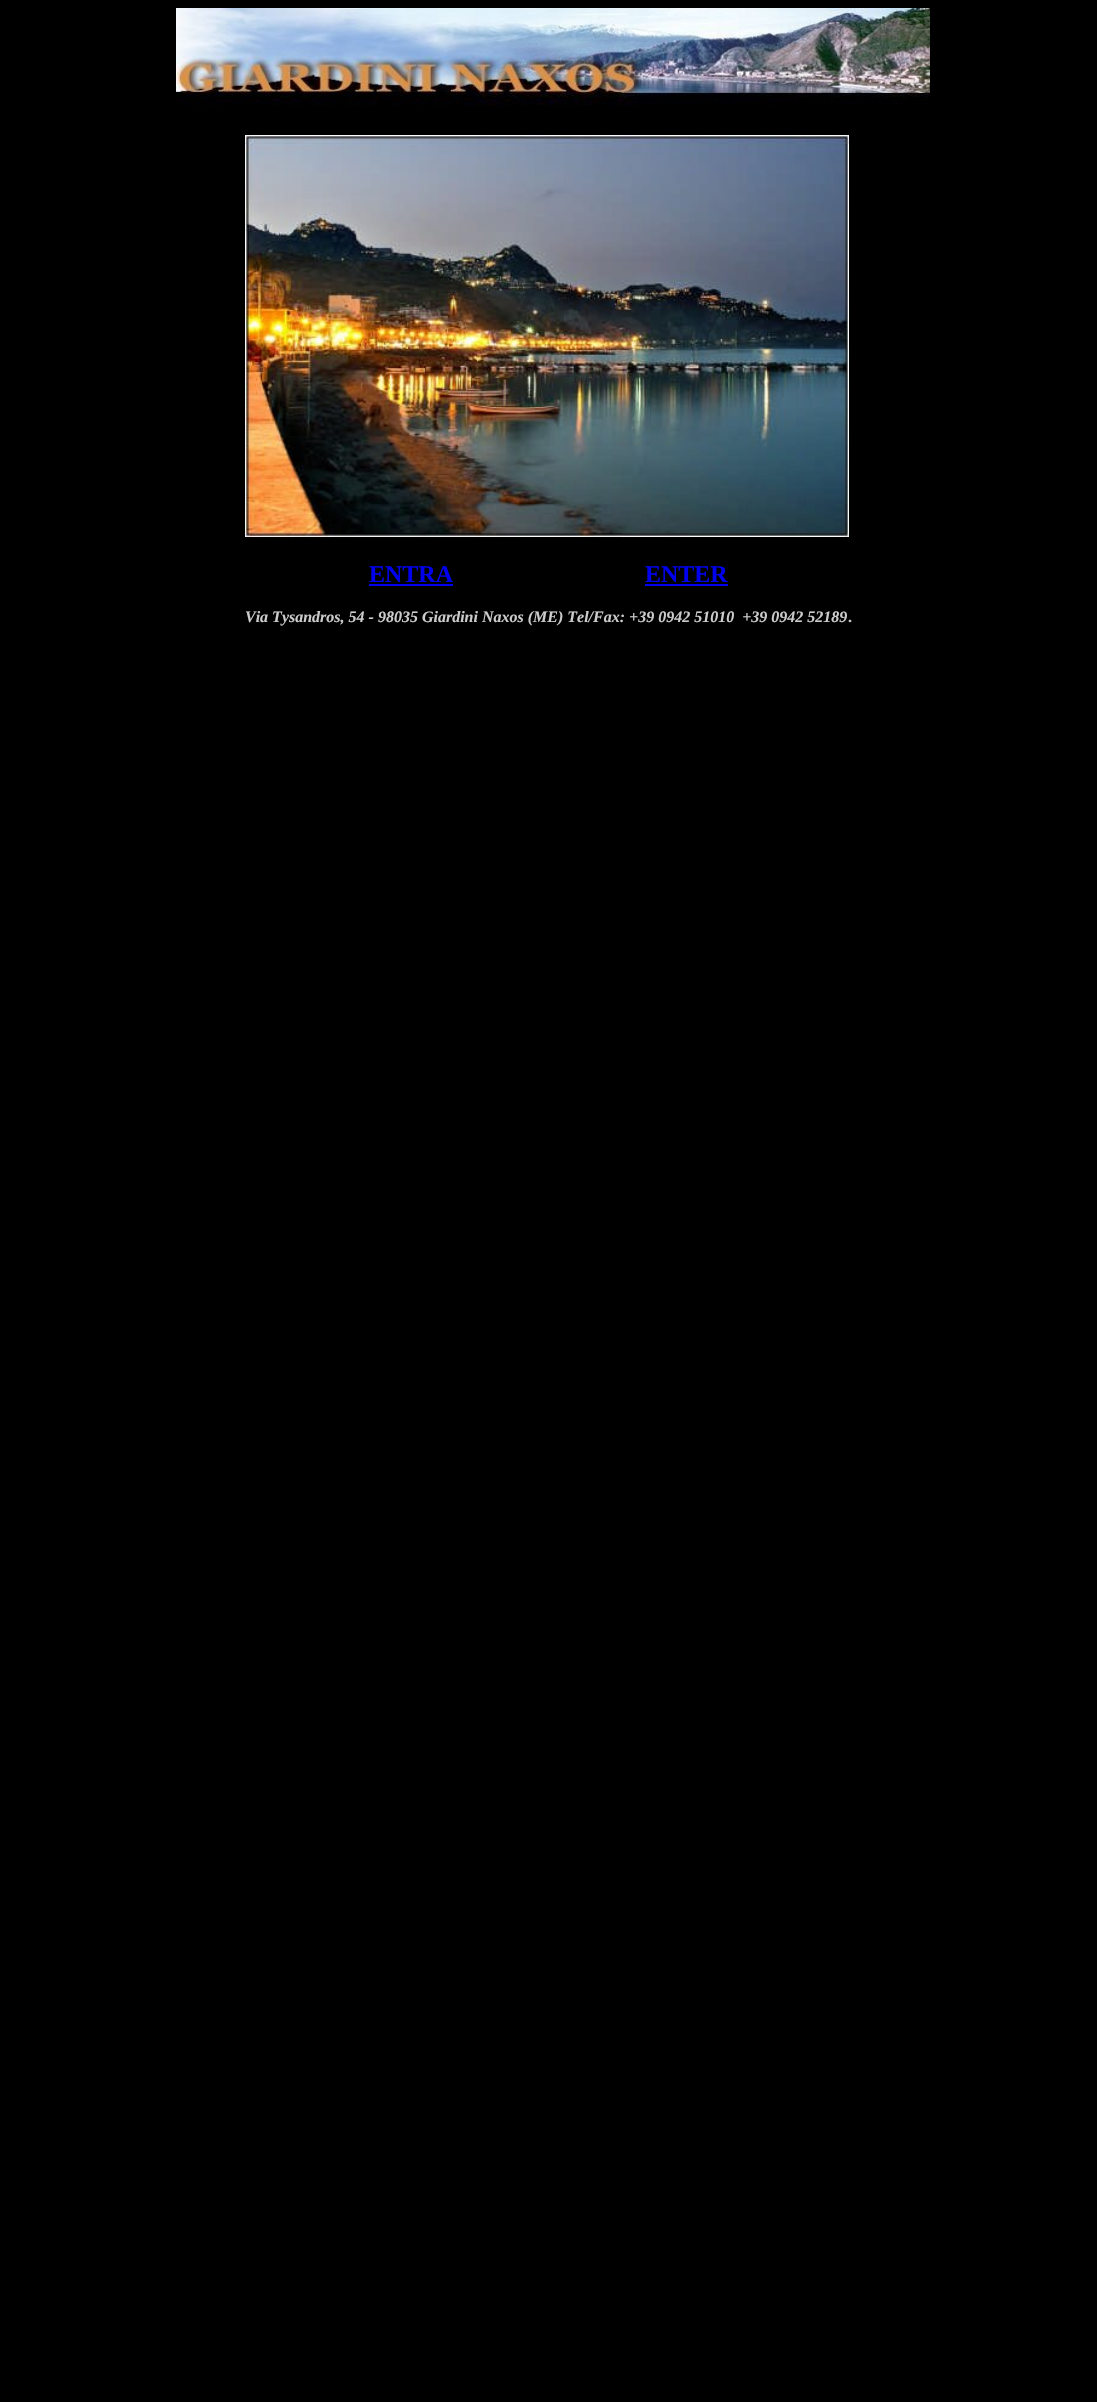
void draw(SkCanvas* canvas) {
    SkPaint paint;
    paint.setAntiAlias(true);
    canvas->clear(0xFF000000);
    canvas->drawImageRect(SkImages::DeferredFromEncodedData(SkData::MakeFromFileName("img1.png")), SkRect::MakeXYWH(176, 8, 754, 98), SkSamplingOptions());
    canvas->drawImageRect(SkImages::DeferredFromEncodedData(SkData::MakeFromFileName("img2.png")), SkRect::MakeXYWH(245, 135, 604, 402), SkSamplingOptions());
    SkFont font1(fontMgr->matchFamilyStyle("Liberation Serif", SkFontStyle::Bold()), 24);
    font1.setSubpixel(true);
    paint.setColor(0xFF0000EE);
    canvas->drawString("ENTRA", 369, 582, font1, paint);
    canvas->drawRect(SkRect::MakeXYWH(369, 584, 84, 2), paint);
    canvas->drawString("ENTER", 645, 582, font1, paint);
    canvas->drawRect(SkRect::MakeXYWH(645, 584, 83, 2), paint);
    SkFont font2(fontMgr->matchFamilyStyle("Liberation Serif", SkFontStyle::BoldItalic()), 16);
    font2.setSubpixel(true);
    paint.setColor(0xFFCCCCCC);
    canvas->drawString("Via Tysandros, 54 - 98035 Giardini Naxos (ME) Tel/Fax: +39 0942 51010  +39 0942 52189", 245, 622, font2, paint);
    SkFont font3(fontMgr->matchFamilyStyle("Liberation Serif", SkFontStyle::Bold()), 16);
    font3.setSubpixel(true);
    canvas->drawString(".", 848, 622, font3, paint);
}
